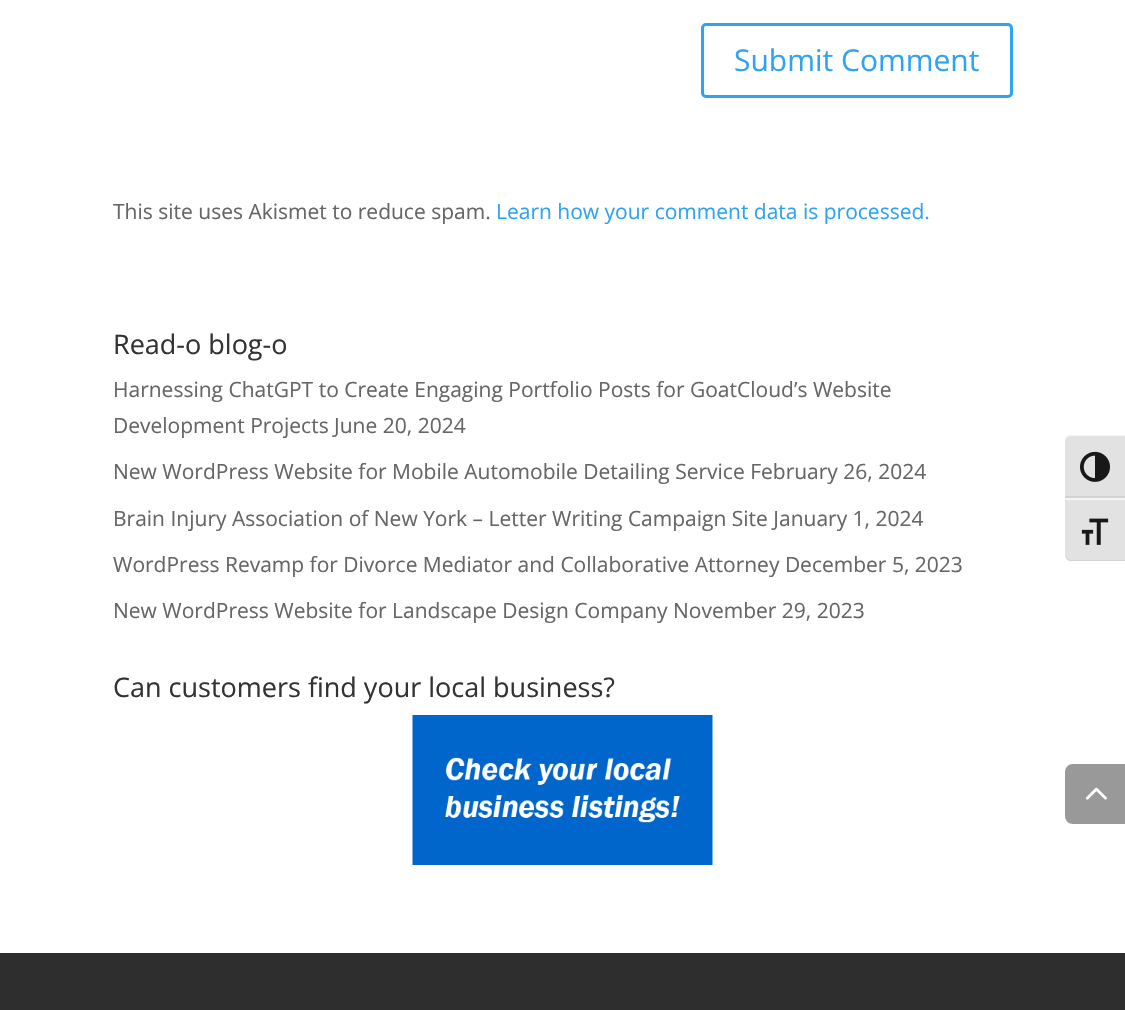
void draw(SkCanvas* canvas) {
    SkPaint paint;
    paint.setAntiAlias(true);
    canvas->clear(0xFFFFFFFF);
    paint.setStyle(SkPaint::kStroke_Style);
    paint.setStrokeWidth(3);
    paint.setColor(0xFF2EA3F2);
    canvas->drawRoundRect(SkRect::MakeXYWH(702.5f, 24.5f, 309, 72), 3.5f, 3.5f, paint);
    SkFont font1(fontMgr->matchFamilyStyle("Open Sans", SkFontStyle::Normal()), 30);
    font1.setSubpixel(true);
    paint.setStyle(SkPaint::kFill_Style);
    canvas->drawString("Submit Comment", 734, 71, font1, paint);
    SkFont font2(fontMgr->matchFamilyStyle("Open Sans", SkFontStyle::Normal()), 21);
    font2.setSubpixel(true);
    paint.setColor(0xFF666666);
    canvas->drawString("This site uses Akismet to reduce spam.", 113, 219, font2, paint);
    paint.setColor(0xFF2EA3F2);
    canvas->drawString("Learn how your comment data is processed.", 496, 219, font2, paint);
    SkFont font3(fontMgr->matchFamilyStyle("Open Sans", SkFontStyle::Normal()), 27);
    font3.setSubpixel(true);
    paint.setColor(0xFF333333);
    canvas->drawString("Read-o blog-o", 113, 354, font3, paint);
    paint.setColor(0xFF666666);
    canvas->drawString("Harnessing ChatGPT to Create Engaging Portfolio Posts for GoatCloud’s Website", 113, 397, font2, paint);
    canvas->drawString("Development Projects June 20, 2024", 113, 433, font2, paint);
    canvas->drawString("New WordPress Website for Mobile Automobile Detailing Service February 26, 2024", 113, 479, font2, paint);
    canvas->drawString("Brain Injury Association of New York – Letter Writing Campaign Site January 1, 2024", 113, 526, font2, paint);
    canvas->drawString("WordPress Revamp for Divorce Mediator and Collaborative Attorney December 5, 2023", 113, 572, font2, paint);
    canvas->drawString("New WordPress Website for Landscape Design Company November 29, 2023", 113, 618, font2, paint);
    paint.setColor(0xFF333333);
    canvas->drawString("Can customers find your local business?", 113, 697, font3, paint);
    canvas->drawImageRect(SkImages::DeferredFromEncodedData(SkData::MakeFromFileName("img1.png")), SkRect::MakeXYWH(412, 715, 301, 150), SkSamplingOptions());
    paint.setColor(0xFF2E2E2E);
    canvas->drawRect(SkRect::MakeXYWH(0, 953, 1125, 57), paint);
    paint.setColor(0xFFE2E2E2);
    canvas->drawPath(SkPathBuilder().moveTo(1071, 435).lineTo(1125, 435).lineTo(1125, 498).lineTo(1065, 498).lineTo(1065, 441).cubicTo(1065, 437.5f, 1067.5f, 435, 1071, 435).close().detach(), paint);
    paint.setColor(0xFFF5F5F5);
    canvas->drawPath(SkPathBuilder().moveTo(1071, 436).lineTo(1125, 436).lineTo(1125, 435).lineTo(1071, 435).cubicTo(1068, 435, 1065, 438, 1065, 441).cubicTo(1065, 439, 1068, 436, 1071, 436).close().detach(), paint);
    paint.setColor(0xFFD2D2D2);
    canvas->drawRect(SkRect::MakeXYWH(1065, 496, 60, 2), paint);
    canvas->drawImageRect(SkImages::DeferredFromEncodedData(SkData::MakeFromFileName("img2.png")), SkRect::MakeXYWH(1080, 451, 30, 31), SkSamplingOptions());
    paint.setColor(0xFFE2E2E2);
    canvas->drawPath(SkPathBuilder().moveTo(1065, 498).lineTo(1125, 498).lineTo(1125, 561).lineTo(1071, 561).cubicTo(1067.5f, 561, 1065, 558.5f, 1065, 555).close().detach(), paint);
    paint.setColor(0xFFF5F5F5);
    canvas->drawRect(SkRect::MakeXYWH(1065, 498, 60, 2), paint);
    paint.setColor(0xFFD2D2D2);
    canvas->drawPath(SkPathBuilder().moveTo(1125, 561).lineTo(1125, 560).lineTo(1071, 560).cubicTo(1068, 560, 1065, 557, 1065, 555).cubicTo(1065, 558, 1068, 561, 1071, 561).close().detach(), paint);
    canvas->drawImageRect(SkImages::DeferredFromEncodedData(SkData::MakeFromFileName("img3.png")), SkRect::MakeXYWH(1081, 518, 28, 27), SkSamplingOptions());
    paint.setColor(0xFF999999);
    canvas->drawPath(SkPathBuilder().moveTo(1073, 764).lineTo(1125, 764).lineTo(1125, 824).lineTo(1073, 824).cubicTo(1068.5f, 824, 1065, 820.5f, 1065, 816).lineTo(1065, 772).cubicTo(1065, 767.5f, 1068.5f, 764, 1073, 764).close().detach(), paint);
    canvas->drawImageRect(SkImages::DeferredFromEncodedData(SkData::MakeFromFileName("img4.png")), SkRect::MakeXYWH(1085, 787, 22, 13), SkSamplingOptions());
}
